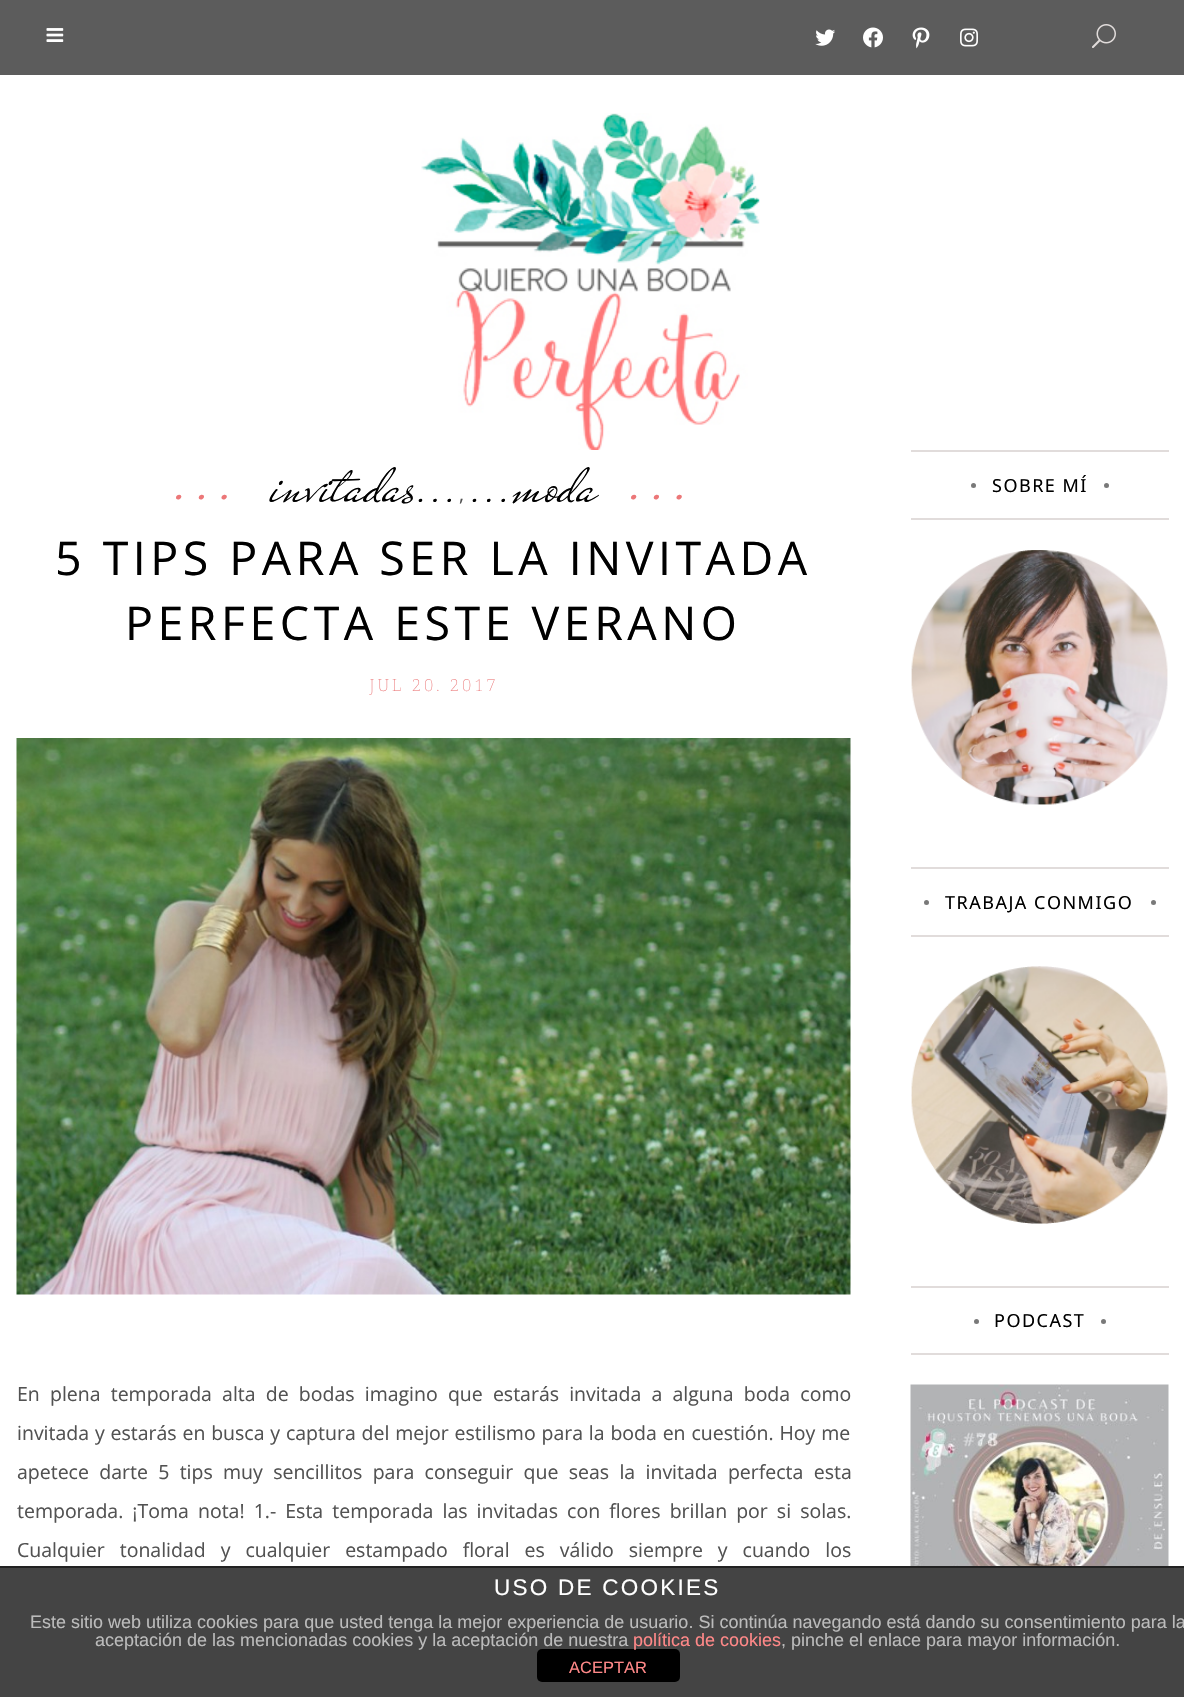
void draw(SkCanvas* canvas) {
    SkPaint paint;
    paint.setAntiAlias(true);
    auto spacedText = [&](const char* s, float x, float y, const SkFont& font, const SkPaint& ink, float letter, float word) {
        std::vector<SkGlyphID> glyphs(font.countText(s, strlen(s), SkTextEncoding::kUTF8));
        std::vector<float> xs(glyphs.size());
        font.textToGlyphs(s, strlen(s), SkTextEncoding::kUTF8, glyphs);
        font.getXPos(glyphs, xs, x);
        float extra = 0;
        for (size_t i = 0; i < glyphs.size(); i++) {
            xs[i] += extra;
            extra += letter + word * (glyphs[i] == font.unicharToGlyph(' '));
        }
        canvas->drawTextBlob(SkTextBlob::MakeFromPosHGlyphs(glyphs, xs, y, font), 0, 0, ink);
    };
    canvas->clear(0xFFFFFFFF);
    paint.setColor(0xFF5C5C5C);
    canvas->drawRect(SkRect::MakeXYWH(0, 0, 1184, 75), paint);
    canvas->drawImageRect(SkImages::DeferredFromEncodedData(SkData::MakeFromFileName("img1.png")), SkRect::MakeXYWH(46, 28, 18, 14), SkSamplingOptions());
    canvas->drawImageRect(SkImages::DeferredFromEncodedData(SkData::MakeFromFileName("img2.png")), SkRect::MakeXYWH(815, 29, 20, 17), SkSamplingOptions());
    canvas->drawImageRect(SkImages::DeferredFromEncodedData(SkData::MakeFromFileName("img3.png")), SkRect::MakeXYWH(863, 27, 20, 21), SkSamplingOptions());
    canvas->drawImageRect(SkImages::DeferredFromEncodedData(SkData::MakeFromFileName("img4.png")), SkRect::MakeXYWH(912, 27, 18, 22), SkSamplingOptions());
    canvas->drawImageRect(SkImages::DeferredFromEncodedData(SkData::MakeFromFileName("img5.png")), SkRect::MakeXYWH(960, 28, 18, 19), SkSamplingOptions());
    canvas->drawImageRect(SkImages::DeferredFromEncodedData(SkData::MakeFromFileName("img6.png")), SkRect::MakeXYWH(1092, 24, 24, 24), SkSamplingOptions());
    canvas->drawImageRect(SkImages::DeferredFromEncodedData(SkData::MakeFromFileName("img7.png")), SkRect::MakeXYWH(421, 113, 339, 337), SkSamplingOptions());
    SkFont font1(fontMgr->matchFamilyStyle("Mr De Haviland", SkFontStyle::Normal()), 98);
    font1.setSubpixel(true);
    paint.setColor(0xFFEC7778);
    spacedText("...", 172, 498, font1, paint, 1.5f, 0);
    SkFont font2(fontMgr->matchFamilyStyle("Mr De Haviland", SkFontStyle::Normal()), 66);
    font2.setSubpixel(true);
    paint.setColor(0xFF000000);
    canvas->drawString("invitadas...", 270, 501, font2, paint);
    SkFont font3(fontMgr->matchFamilyStyle("Open Sans", SkFontStyle::Normal()), 19.5f);
    font3.setSubpixel(true);
    paint.setColor(0xFF525252);
    canvas->drawString(",", 459, 501, font3, paint);
    paint.setColor(0xFF000000);
    canvas->drawString("...moda", 470, 501, font2, paint);
    paint.setColor(0xFFEC7778);
    spacedText("...", 627, 498, font1, paint, 1.5f, 0);
    SkFont font4(fontMgr->matchFamilyStyle("Open Sans", SkFontStyle::Normal()), 46.5f);
    font4.setSubpixel(true);
    paint.setColor(0xFF000000);
    spacedText("5 TIPS PARA SER LA INVITADA", 55, 575, font4, paint, 4.5f, 0);
    spacedText("PERFECTA ESTE VERANO", 125, 640, font4, paint, 4.5f, 0);
    SkFont font5(fontMgr->matchFamilyStyle("Noto Serif", SkFontStyle(100, SkFontStyle::kNormal_Width, SkFontStyle::kUpright_Slant)), 16.5f);
    font5.setSubpixel(true);
    paint.setColor(0xFFEC7778);
    spacedText("JUL 20. 2017", 369, 691, font5, paint, 3, 0);
    canvas->drawImageRect(SkImages::DeferredFromEncodedData(SkData::MakeFromFileName("img8.png")), SkRect::MakeXYWH(16, 738, 835, 557), SkSamplingOptions());
    paint.setColor(0xFF525252);
    spacedText("En plena temporada alta de bodas imagino que estarás invitada a alguna boda como", 17, 1401, font3, paint, 0, 5.1f);
    spacedText("invitada y estarás en busca y captura del mejor estilismo para la boda en cuestión. Hoy me", 17, 1440, font3, paint, 0, 0.75f);
    spacedText("apetece darte 5 tips muy sencillitos para conseguir que seas la invitada perfecta esta", 17, 1479, font3, paint, 0, 5.25f);
    spacedText("temporada. ¡Toma nota! 1.- Esta temporada las invitadas con flores brillan por si solas.", 17, 1518, font3, paint, 0, 4);
    spacedText("Cualquier tonalidad y cualquier estampado floral es válido siempre y cuando los", 17, 1557, font3, paint, 0, 9.9f);
    paint.setColor(0xFFE1DCDB);
    canvas->drawRect(SkRect::MakeXYWH(911, 450, 258, 2), paint);
    canvas->drawRect(SkRect::MakeXYWH(911, 518, 258, 2), paint);
    paint.setColor(0xFF797979);
    canvas->drawCircle(973.5f, 485.5f, 2.5f, paint);
    SkFont font6(fontMgr->matchFamilyStyle("Noto Sans", SkFontStyle::Normal()), 18);
    font6.setSubpixel(true);
    paint.setColor(0xFF000000);
    spacedText("SOBRE MÍ", 992, 492, font6, paint, 1.5f, 0);
    paint.setColor(0xFF797979);
    canvas->drawCircle(1106.5f, 485.5f, 2.5f, paint);
    canvas->drawImageRect(SkImages::DeferredFromEncodedData(SkData::MakeFromFileName("img9.png")), SkRect::MakeXYWH(911, 550, 257, 255), SkSamplingOptions());
    paint.setColor(0xFFE1DCDB);
    canvas->drawRect(SkRect::MakeXYWH(911, 867, 258, 2), paint);
    canvas->drawRect(SkRect::MakeXYWH(911, 935, 258, 2), paint);
    paint.setColor(0xFF797979);
    canvas->drawCircle(926.5f, 902.5f, 2.5f, paint);
    paint.setColor(0xFF000000);
    spacedText("TRABAJA CONMIGO", 945, 909, font6, paint, 1.5f, 0);
    paint.setColor(0xFF797979);
    canvas->drawCircle(1153.5f, 902.5f, 2.5f, paint);
    canvas->drawImageRect(SkImages::DeferredFromEncodedData(SkData::MakeFromFileName("img10.png")), SkRect::MakeXYWH(911, 966, 257, 258), SkSamplingOptions());
    paint.setColor(0xFFE1DCDB);
    canvas->drawRect(SkRect::MakeXYWH(911, 1286, 258, 2), paint);
    canvas->drawRect(SkRect::MakeXYWH(911, 1353, 258, 2), paint);
    paint.setColor(0xFF797979);
    canvas->drawCircle(976.5f, 1321.5f, 2.5f, paint);
    paint.setColor(0xFF000000);
    spacedText("PODCAST", 994, 1327, font6, paint, 1.5f, 0);
    paint.setColor(0xFF797979);
    canvas->drawCircle(1103.5f, 1321.5f, 2.5f, paint);
    canvas->drawImageRect(SkImages::DeferredFromEncodedData(SkData::MakeFromFileName("img11.png")), SkRect::MakeXYWH(910, 1384, 259, 182), SkSamplingOptions());
    paint.setColor(0xFF444444);
    canvas->drawRect(SkRect::MakeXYWH(0, 1568, 1184, 129), paint);
    paint.setColor(0xFF222222);
    canvas->drawRect(SkRect::MakeXYWH(0, 1566, 1184, 2), paint);
    SkFont font7(fontMgr->matchFamilyStyle("Liberation Sans", SkFontStyle::Normal()), 22.5f);
    font7.setSubpixel(true);
    paint.setColor(0xFFFFFFFF);
    spacedText("USO DE COOKIES", 494, 1595, font7, paint, 2.25f, 0);
    SkFont font8(fontMgr->matchFamilyStyle("Liberation Sans", SkFontStyle::Normal()), 18);
    font8.setSubpixel(true);
    paint.setColor(0xFFBBBBBB);
    canvas->drawString("Este sitio web utiliza cookies para que usted tenga la mejor experiencia de usuario. Si continúa navegando está dando su consentimiento para la", 30, 1628, font8, paint);
    paint.setColor(0xFF000000);
    canvas->drawRoundRect(SkRect::MakeXYWH(537, 1649, 143, 33), 5, 5, paint);
    paint.setColor(0xFFBBBBBB);
    canvas->drawString("aceptación de las mencionadas cookies y la aceptación de nuestra", 95, 1646, font8, paint);
    paint.setColor(0xFFFF8888);
    canvas->drawString("política de cookies", 633, 1646, font8, paint);
    paint.setColor(0xFFBBBBBB);
    canvas->drawString(", pinche el enlace para mayor información.", 781, 1646, font8, paint);
    SkFont font9(fontMgr->matchFamilyStyle("Liberation Sans", SkFontStyle::Normal()), 16.5f);
    font9.setSubpixel(true);
    paint.setColor(0xFFFF8888);
    canvas->drawString("ACEPTAR", 569, 1673, font9, paint);
}
